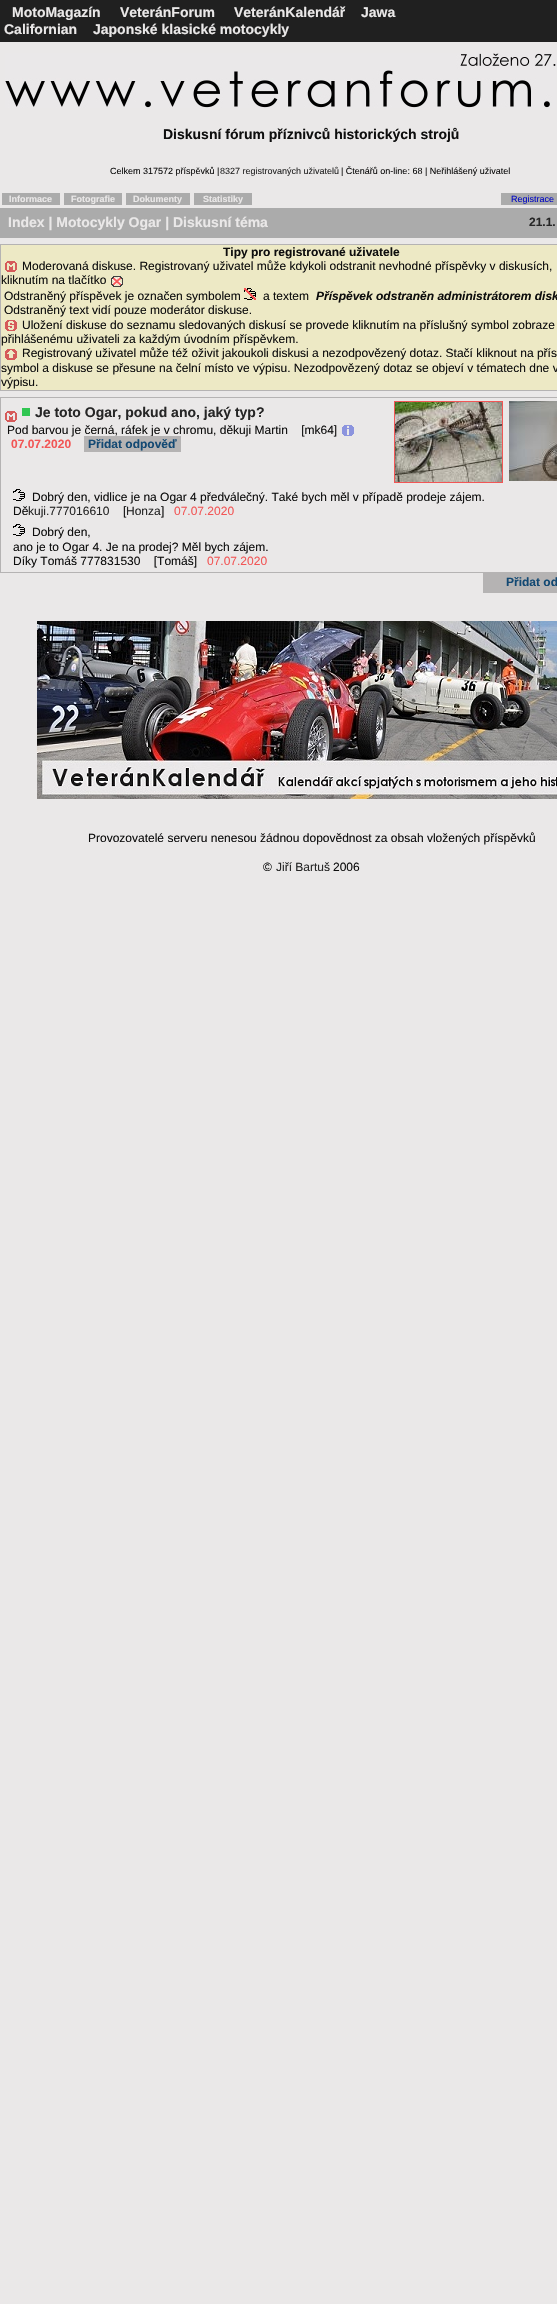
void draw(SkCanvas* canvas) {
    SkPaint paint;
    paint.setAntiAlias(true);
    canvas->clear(0xFFEAE8E8);
    paint.setColor(0xFF202020);
    canvas->drawRect(SkRect::MakeXYWH(0, 0, 557, 42), paint);
    SkFont font1(fontMgr->matchFamilyStyle("Liberation Sans", SkFontStyle::Bold()), 14);
    font1.setSubpixel(true);
    paint.setColor(0xFFEAE8E8);
    canvas->drawString("MotoMagazín", 12, 17, font1, paint);
    canvas->drawString("VeteránForum", 120, 17, font1, paint);
    canvas->drawString("VeteránKalendář", 234, 17, font1, paint);
    canvas->drawString("Jawa", 361, 17, font1, paint);
    canvas->drawString("Californian", 4, 34, font1, paint);
    canvas->drawString("Japonské klasické motocykly", 93, 34, font1, paint);
    canvas->drawImageRect(SkImages::DeferredFromEncodedData(SkData::MakeFromFileName("img1.png")), SkRect::MakeXYWH(5, 53, 551, 55), SkSamplingOptions());
    paint.setColor(0xFF0E0E0E);
    canvas->drawString("Diskusní fórum příznivců historických strojů", 163, 139, font1, paint);
    SkFont font2(fontMgr->matchFamilyStyle("Liberation Sans", SkFontStyle::Normal()), 9);
    font2.setSubpixel(true);
    canvas->drawString("Celkem 317572 příspěvků |", 110, 174, font2, paint);
    paint.setColor(0xFF262626);
    canvas->drawString("8327 registrovaných uživatelů", 220, 174, font2, paint);
    paint.setColor(0xFF0E0E0E);
    canvas->drawString("| Čtenářů on-line: 68 | Neřihlášený uživatel", 341, 174, font2, paint);
    paint.setColor(0xFFABABAB);
    canvas->drawRect(SkRect::MakeXYWH(2, 193, 58, 12), paint);
    SkFont font3(fontMgr->matchFamilyStyle("Liberation Sans", SkFontStyle::Bold()), 9);
    font3.setSubpixel(true);
    paint.setColor(0xFFEAE8E8);
    canvas->drawString("Informace", 9, 202, font3, paint);
    paint.setColor(0xFFABABAB);
    canvas->drawRect(SkRect::MakeXYWH(64, 193, 58, 12), paint);
    paint.setColor(0xFFEAE8E8);
    canvas->drawString("Fotografie", 71, 202, font3, paint);
    paint.setColor(0xFFABABAB);
    canvas->drawRect(SkRect::MakeXYWH(126, 193, 64, 12), paint);
    paint.setColor(0xFFEAE8E8);
    canvas->drawString("Dokumenty", 133, 202, font3, paint);
    paint.setColor(0xFFABABAB);
    canvas->drawRect(SkRect::MakeXYWH(194, 193, 58, 12), paint);
    paint.setColor(0xFFEAE8E8);
    canvas->drawString("Statistiky", 203, 202, font3, paint);
    paint.setColor(0xFFABABAB);
    canvas->drawRect(SkRect::MakeXYWH(501, 193, 56, 12), paint);
    paint.setColor(0xFF0308C3);
    canvas->drawString("Registrace", 511, 202, font2, paint);
    paint.setColor(0xFFABABAB);
    canvas->drawRect(SkRect::MakeXYWH(0, 208, 557, 30), paint);
    paint.setColor(0xFFEAE8E8);
    canvas->drawString("Index | Motocykly Ogar | Diskusní téma", 8, 227, font1, paint);
    SkFont font4(fontMgr->matchFamilyStyle("Liberation Sans", SkFontStyle::Bold()), 12);
    font4.setSubpixel(true);
    paint.setColor(0xFF262626);
    canvas->drawString("21.1.", 529, 226, font4, paint);
    paint.setColor(0xFFEDE9C5);
    canvas->drawRect(SkRect::MakeXYWH(1, 245, 556, 145), paint);
    paint.setColor(0xFFB5B3B3);
    canvas->drawRect(SkRect::MakeXYWH(0, 244, 557, 1), paint);
    canvas->drawRect(SkRect::MakeXYWH(0, 390, 557, 1), paint);
    canvas->drawRect(SkRect::MakeXYWH(0, 244, 1, 147), paint);
    paint.setColor(0xFF0E0E0E);
    canvas->drawString("Tipy pro registrované uživatele", 223, 256, font4, paint);
    canvas->drawImageRect(SkImages::DeferredFromEncodedData(SkData::MakeFromFileName("img2.png")), SkRect::MakeXYWH(5, 261, 12, 11), SkSamplingOptions());
    SkFont font5(fontMgr->matchFamilyStyle("Liberation Sans", SkFontStyle::Normal()), 12);
    font5.setSubpixel(true);
    canvas->drawString("Moderovaná diskuse. Registrovaný uživatel může kdykoli odstranit nevhodné příspěvky v diskusích,", 22, 270, font5, paint);
    canvas->drawString("kliknutím na tlačítko", 1, 284, font5, paint);
    canvas->drawImageRect(SkImages::DeferredFromEncodedData(SkData::MakeFromFileName("img3.png")), SkRect::MakeXYWH(111, 276, 12, 11), SkSamplingOptions());
    canvas->drawString("Odstraněný příspěvek je označen symbolem", 4, 300, font5, paint);
    canvas->drawImageRect(SkImages::DeferredFromEncodedData(SkData::MakeFromFileName("img4.png")), SkRect::MakeXYWH(244, 288, 12, 12), SkSamplingOptions());
    canvas->drawString("a textem", 263, 300, font5, paint);
    SkFont font6(fontMgr->matchFamilyStyle("Liberation Sans", SkFontStyle::BoldItalic()), 12);
    font6.setSubpixel(true);
    canvas->drawString("Příspěvek odstraněn administrátorem disk", 316, 300, font6, paint);
    canvas->drawString("Odstraněný text vidí pouze moderátor diskuse.", 4, 314, font5, paint);
    canvas->drawImageRect(SkImages::DeferredFromEncodedData(SkData::MakeFromFileName("img5.png")), SkRect::MakeXYWH(5, 320, 12, 11), SkSamplingOptions());
    canvas->drawString("Uložení diskuse do seznamu sledovaných diskusí se provede kliknutím na příslušný symbol zobraze", 22, 329, font5, paint);
    canvas->drawString("přihlášenému uživateli za každým úvodním příspěvkem.", 1, 343, font5, paint);
    canvas->drawImageRect(SkImages::DeferredFromEncodedData(SkData::MakeFromFileName("img6.png")), SkRect::MakeXYWH(5, 349, 12, 11), SkSamplingOptions());
    canvas->drawString("Registrovaný uživatel může též oživit jakoukoli diskusi a nezodpovězený dotaz. Stačí kliknout na přís", 22, 357, font5, paint);
    canvas->drawString("symbol a diskuse se přesune na čelní místo ve výpisu. Nezodpovězený dotaz se objeví v tématech dne v", 1, 372, font5, paint);
    canvas->drawString("výpisu.", 1, 386, font5, paint);
    paint.setColor(0xFFB5B3B3);
    canvas->drawRect(SkRect::MakeXYWH(0, 397, 557, 1), paint);
    canvas->drawRect(SkRect::MakeXYWH(0, 572, 557, 1), paint);
    canvas->drawRect(SkRect::MakeXYWH(0, 398, 1, 174), paint);
    canvas->drawImageRect(SkImages::DeferredFromEncodedData(SkData::MakeFromFileName("img7.png")), SkRect::MakeXYWH(5, 411, 12, 11), SkSamplingOptions());
    paint.setColor(0xFF31C652);
    canvas->drawRect(SkRect::MakeXYWH(22, 408, 8, 8), paint);
    paint.setColor(0xFF262626);
    canvas->drawString("Je toto Ogar, pokud ano, jaký typ?", 35, 417, font1, paint);
    paint.setStyle(SkPaint::kStroke_Style);
    paint.setStrokeWidth(1);
    paint.setColor(0xFFF25656);
    canvas->drawRect(SkRect::MakeXYWH(394.5f, 401.5f, 108, 81), paint);
    canvas->drawImageRect(SkImages::DeferredFromEncodedData(SkData::MakeFromFileName("img8.png")), SkRect::MakeXYWH(395, 402, 107, 80), SkSamplingOptions());
    canvas->drawImageRect(SkImages::DeferredFromEncodedData(SkData::MakeFromFileName("img9.png")), SkRect::MakeXYWH(509, 401, 48, 80), SkSamplingOptions());
    paint.setStyle(SkPaint::kFill_Style);
    paint.setColor(0xFF0E0E0E);
    canvas->drawString("Pod barvou je černá, ráfek je v chromu, děkuji Martin    [mk64]", 7, 434, font5, paint);
    canvas->drawImageRect(SkImages::DeferredFromEncodedData(SkData::MakeFromFileName("img10.png")), SkRect::MakeXYWH(342, 425, 12, 11), SkSamplingOptions());
    paint.setColor(0xFFF25656);
    canvas->drawString("07.07.2020", 11, 448, font4, paint);
    paint.setColor(0xFFB5B3B3);
    canvas->drawRect(SkRect::MakeXYWH(84, 436, 97, 16), paint);
    paint.setColor(0xFF134973);
    canvas->drawString("Přidat odpověď", 88, 448, font4, paint);
    canvas->drawImageRect(SkImages::DeferredFromEncodedData(SkData::MakeFromFileName("img11.png")), SkRect::MakeXYWH(13, 489, 12, 12), SkSamplingOptions());
    paint.setColor(0xFF0E0E0E);
    canvas->drawString("Dobrý den, vidlice je na Ogar 4 předválečný. Také bych měl v případě prodeje zájem.", 32, 501, font5, paint);
    canvas->drawString("Dě", 13, 515, font5, paint);
    paint.setColor(0xFF262626);
    canvas->drawString("kuji.777016610", 28, 515, font5, paint);
    paint.setColor(0xFF0E0E0E);
    canvas->drawString("[", 123, 515, font5, paint);
    paint.setColor(0xFF262626);
    canvas->drawString("Honza", 126, 515, font5, paint);
    paint.setColor(0xFF0E0E0E);
    canvas->drawString("]", 161, 515, font5, paint);
    paint.setColor(0xFFF25656);
    canvas->drawString("07.07.2020", 174, 515, font5, paint);
    canvas->drawImageRect(SkImages::DeferredFromEncodedData(SkData::MakeFromFileName("img11.png")), SkRect::MakeXYWH(13, 524, 12, 12), SkSamplingOptions());
    paint.setColor(0xFF0E0E0E);
    canvas->drawString("Dobrý den,", 32, 536, font5, paint);
    canvas->drawString("ano je to Ogar 4. Je na prodej? Měl bych zájem.", 13, 551, font5, paint);
    canvas->drawString("Díky Tomáš 777831530    [Tomáš]", 13, 565, font5, paint);
    paint.setColor(0xFFF25656);
    canvas->drawString("07.07.2020", 207, 565, font5, paint);
    paint.setColor(0xFFB5B3B3);
    canvas->drawRect(SkRect::MakeXYWH(483, 573, 74, 20), paint);
    paint.setColor(0xFF134973);
    canvas->drawString("Přidat od", 506, 586, font4, paint);
    canvas->drawImageRect(SkImages::DeferredFromEncodedData(SkData::MakeFromFileName("img12.png")), SkRect::MakeXYWH(37, 621, 520, 178), SkSamplingOptions());
    paint.setColor(0xFF0E0E0E);
    canvas->drawString("Provozovatelé serveru nenesou žádnou dopovědnost za obsah vložených příspěvků", 88, 842, font5, paint);
    canvas->drawString("©", 263, 871, font5, paint);
    paint.setColor(0xFF262626);
    canvas->drawString("Jiří Bartuš", 276, 871, font5, paint);
    paint.setColor(0xFF0E0E0E);
    canvas->drawString("2006", 333, 871, font5, paint);
}
